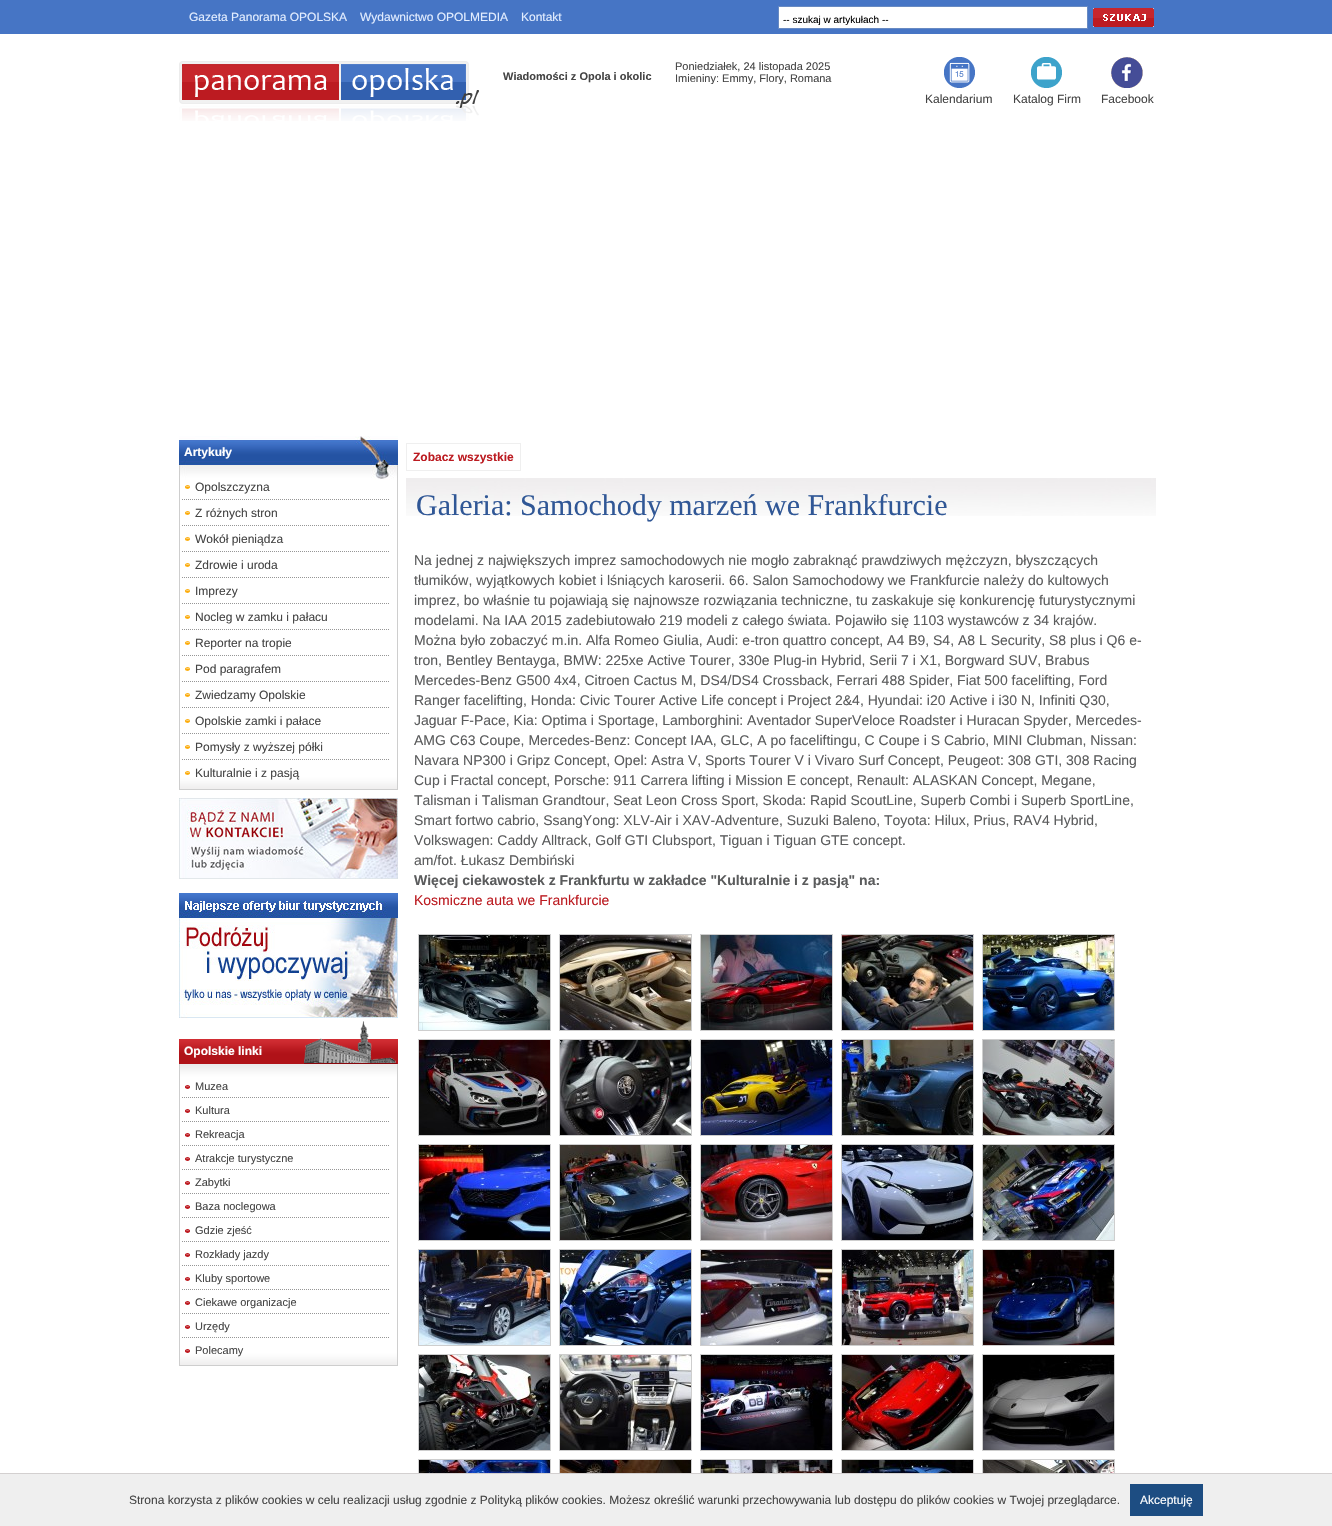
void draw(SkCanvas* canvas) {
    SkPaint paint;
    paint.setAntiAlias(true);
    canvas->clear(0xFFFFFFFF);
    paint.setColor(0xFF4675C5);
    canvas->drawRect(SkRect::MakeXYWH(0, 0, 1332, 34), paint);
    SkFont font1(fontMgr->matchFamilyStyle("Liberation Sans", SkFontStyle::Normal()), 12);
    font1.setSubpixel(true);
    paint.setColor(0xFFE2EDFF);
    canvas->drawString("Gazeta Panorama OPOLSKA", 189, 21, font1, paint);
    canvas->drawString("Wydawnictwo OPOLMEDIA", 360, 21, font1, paint);
    canvas->drawString("Kontakt", 521, 21, font1, paint);
    paint.setColor(0xFFFFFFFF);
    canvas->drawRect(SkRect::MakeXYWH(778.5f, 6.5f, 309, 22), paint);
    paint.setStyle(SkPaint::kStroke_Style);
    paint.setStrokeWidth(1);
    paint.setColor(0xFF688AC2);
    canvas->drawRect(SkRect::MakeXYWH(778.5f, 6.5f, 309, 22), paint);
    SkFont font2(fontMgr->matchFamilyStyle("Liberation Sans", SkFontStyle::Normal()), 10);
    font2.setSubpixel(true);
    paint.setStyle(SkPaint::kFill_Style);
    paint.setColor(0xFF000000);
    canvas->drawString("-- szukaj w artykułach --", 783, 23, font2, paint);
    canvas->drawImageRect(SkImages::DeferredFromEncodedData(SkData::MakeFromFileName("img1.png")), SkRect::MakeXYWH(1093, 8, 61, 19), SkSamplingOptions());
    canvas->drawImageRect(SkImages::DeferredFromEncodedData(SkData::MakeFromFileName("img2.png")), SkRect::MakeXYWH(179, 61, 300, 60), SkSamplingOptions());
    SkFont font3(fontMgr->matchFamilyStyle("Liberation Sans", SkFontStyle::Bold()), 11);
    font3.setSubpixel(true);
    paint.setColor(0xFF444444);
    canvas->drawString("Wiadomości z Opola i okolic", 503, 80, font3, paint);
    SkFont font4(fontMgr->matchFamilyStyle("Liberation Sans", SkFontStyle::Normal()), 11);
    font4.setSubpixel(true);
    canvas->drawString("Poniedziałek, 24 listopada 2025", 675, 70, font4, paint);
    canvas->save();
    canvas->clipRect(SkRect::MakeXYWH(675, 60, 232, 24));
    canvas->drawString("Imieniny: Emmy, Flory, Romana", 675, 82, font4, paint);
    canvas->restore();
    canvas->drawImageRect(SkImages::DeferredFromEncodedData(SkData::MakeFromFileName("img3.png")), SkRect::MakeXYWH(944, 57, 31, 31), SkSamplingOptions());
    canvas->drawString("Kalendarium", 925, 103, font1, paint);
    canvas->drawImageRect(SkImages::DeferredFromEncodedData(SkData::MakeFromFileName("img4.png")), SkRect::MakeXYWH(1031, 57, 31, 31), SkSamplingOptions());
    canvas->drawString("Katalog Firm", 1013, 103, font1, paint);
    canvas->drawImageRect(SkImages::DeferredFromEncodedData(SkData::MakeFromFileName("img5.png")), SkRect::MakeXYWH(1111, 57, 32, 31), SkSamplingOptions());
    canvas->drawString("Facebook", 1101, 103, font1, paint);
    canvas->drawImageRect(SkImages::DeferredFromEncodedData(SkData::MakeFromFileName("img6.png")), SkRect::MakeXYWH(180, 774, 217, 16), SkSamplingOptions());
    canvas->drawImageRect(SkImages::DeferredFromEncodedData(SkData::MakeFromFileName("img7.png")), SkRect::MakeXYWH(179, 436, 219, 44), SkSamplingOptions());
    SkFont font5(fontMgr->matchFamilyStyle("Liberation Sans", SkFontStyle::Bold()), 12);
    font5.setSubpixel(true);
    paint.setColor(0xFFFFFFFF);
    canvas->drawString("Artykuły", 184, 456, font5, paint);
    paint.setColor(0xFFCECECE);
    canvas->drawRect(SkRect::MakeXYWH(397, 480, 1, 310), paint);
    canvas->drawRect(SkRect::MakeXYWH(179, 480, 1, 310), paint);
    canvas->drawImageRect(SkImages::DeferredFromEncodedData(SkData::MakeFromFileName("img8.png")), SkRect::MakeXYWH(185, 485, 5, 4), SkSamplingOptions());
    paint.setColor(0xFF444444);
    canvas->drawString("Opolszczyzna", 195, 491, font1, paint);
    canvas->drawImageRect(SkImages::DeferredFromEncodedData(SkData::MakeFromFileName("img9.png")), SkRect::MakeXYWH(182, 499, 207, 1), SkSamplingOptions());
    canvas->drawImageRect(SkImages::DeferredFromEncodedData(SkData::MakeFromFileName("img8.png")), SkRect::MakeXYWH(185, 511, 5, 4), SkSamplingOptions());
    canvas->drawString("Z różnych stron", 195, 517, font1, paint);
    canvas->drawImageRect(SkImages::DeferredFromEncodedData(SkData::MakeFromFileName("img9.png")), SkRect::MakeXYWH(182, 525, 207, 1), SkSamplingOptions());
    canvas->drawImageRect(SkImages::DeferredFromEncodedData(SkData::MakeFromFileName("img8.png")), SkRect::MakeXYWH(185, 537, 5, 4), SkSamplingOptions());
    canvas->drawString("Wokół pieniądza", 195, 543, font1, paint);
    canvas->drawImageRect(SkImages::DeferredFromEncodedData(SkData::MakeFromFileName("img9.png")), SkRect::MakeXYWH(182, 551, 207, 1), SkSamplingOptions());
    canvas->drawImageRect(SkImages::DeferredFromEncodedData(SkData::MakeFromFileName("img8.png")), SkRect::MakeXYWH(185, 563, 5, 4), SkSamplingOptions());
    canvas->drawString("Zdrowie i uroda", 195, 569, font1, paint);
    canvas->drawImageRect(SkImages::DeferredFromEncodedData(SkData::MakeFromFileName("img9.png")), SkRect::MakeXYWH(182, 577, 207, 1), SkSamplingOptions());
    canvas->drawImageRect(SkImages::DeferredFromEncodedData(SkData::MakeFromFileName("img8.png")), SkRect::MakeXYWH(185, 589, 5, 4), SkSamplingOptions());
    canvas->drawString("Imprezy", 195, 595, font1, paint);
    canvas->drawImageRect(SkImages::DeferredFromEncodedData(SkData::MakeFromFileName("img9.png")), SkRect::MakeXYWH(182, 603, 207, 1), SkSamplingOptions());
    canvas->drawImageRect(SkImages::DeferredFromEncodedData(SkData::MakeFromFileName("img8.png")), SkRect::MakeXYWH(185, 615, 5, 4), SkSamplingOptions());
    canvas->drawString("Nocleg w zamku i pałacu", 195, 621, font1, paint);
    canvas->drawImageRect(SkImages::DeferredFromEncodedData(SkData::MakeFromFileName("img9.png")), SkRect::MakeXYWH(182, 629, 207, 1), SkSamplingOptions());
    canvas->drawImageRect(SkImages::DeferredFromEncodedData(SkData::MakeFromFileName("img8.png")), SkRect::MakeXYWH(185, 641, 5, 4), SkSamplingOptions());
    canvas->drawString("Reporter na tropie", 195, 647, font1, paint);
    canvas->drawImageRect(SkImages::DeferredFromEncodedData(SkData::MakeFromFileName("img9.png")), SkRect::MakeXYWH(182, 655, 207, 1), SkSamplingOptions());
    canvas->drawImageRect(SkImages::DeferredFromEncodedData(SkData::MakeFromFileName("img8.png")), SkRect::MakeXYWH(185, 667, 5, 4), SkSamplingOptions());
    canvas->drawString("Pod paragrafem", 195, 673, font1, paint);
    canvas->drawImageRect(SkImages::DeferredFromEncodedData(SkData::MakeFromFileName("img9.png")), SkRect::MakeXYWH(182, 681, 207, 1), SkSamplingOptions());
    canvas->drawImageRect(SkImages::DeferredFromEncodedData(SkData::MakeFromFileName("img8.png")), SkRect::MakeXYWH(185, 693, 5, 4), SkSamplingOptions());
    canvas->drawString("Zwiedzamy Opolskie", 195, 699, font1, paint);
    canvas->drawImageRect(SkImages::DeferredFromEncodedData(SkData::MakeFromFileName("img9.png")), SkRect::MakeXYWH(182, 707, 207, 1), SkSamplingOptions());
    canvas->drawImageRect(SkImages::DeferredFromEncodedData(SkData::MakeFromFileName("img8.png")), SkRect::MakeXYWH(185, 719, 5, 4), SkSamplingOptions());
    canvas->drawString("Opolskie zamki i pałace", 195, 725, font1, paint);
    canvas->drawImageRect(SkImages::DeferredFromEncodedData(SkData::MakeFromFileName("img9.png")), SkRect::MakeXYWH(182, 733, 207, 1), SkSamplingOptions());
    canvas->drawImageRect(SkImages::DeferredFromEncodedData(SkData::MakeFromFileName("img8.png")), SkRect::MakeXYWH(185, 745, 5, 4), SkSamplingOptions());
    canvas->drawString("Pomysły z wyższej półki", 195, 751, font1, paint);
    canvas->drawImageRect(SkImages::DeferredFromEncodedData(SkData::MakeFromFileName("img9.png")), SkRect::MakeXYWH(182, 759, 207, 1), SkSamplingOptions());
    canvas->drawImageRect(SkImages::DeferredFromEncodedData(SkData::MakeFromFileName("img8.png")), SkRect::MakeXYWH(185, 771, 5, 4), SkSamplingOptions());
    canvas->drawString("Kulturalnie i z pasją", 195, 777, font1, paint);
    canvas->drawImageRect(SkImages::DeferredFromEncodedData(SkData::MakeFromFileName("img10.png")), SkRect::MakeXYWH(179, 798, 219, 81), SkSamplingOptions());
    canvas->drawImageRect(SkImages::DeferredFromEncodedData(SkData::MakeFromFileName("img11.png")), SkRect::MakeXYWH(179, 893, 219, 125), SkSamplingOptions());
    canvas->drawImageRect(SkImages::DeferredFromEncodedData(SkData::MakeFromFileName("img6.png")), SkRect::MakeXYWH(180, 1350, 217, 16), SkSamplingOptions());
    canvas->drawImageRect(SkImages::DeferredFromEncodedData(SkData::MakeFromFileName("img12.png")), SkRect::MakeXYWH(179, 1021, 219, 59), SkSamplingOptions());
    paint.setColor(0xFFFFFFFF);
    canvas->drawString("Opolskie linki", 184, 1055, font5, paint);
    paint.setColor(0xFFCECECE);
    canvas->drawRect(SkRect::MakeXYWH(397, 1080, 1, 286), paint);
    canvas->drawRect(SkRect::MakeXYWH(179, 1080, 1, 286), paint);
    canvas->drawImageRect(SkImages::DeferredFromEncodedData(SkData::MakeFromFileName("img13.png")), SkRect::MakeXYWH(185, 1085, 5, 4), SkSamplingOptions());
    paint.setColor(0xFF444444);
    canvas->drawString("Muzea", 195, 1090, font4, paint);
    canvas->drawImageRect(SkImages::DeferredFromEncodedData(SkData::MakeFromFileName("img9.png")), SkRect::MakeXYWH(182, 1097, 207, 1), SkSamplingOptions());
    canvas->drawImageRect(SkImages::DeferredFromEncodedData(SkData::MakeFromFileName("img13.png")), SkRect::MakeXYWH(185, 1109, 5, 4), SkSamplingOptions());
    canvas->drawString("Kultura", 195, 1114, font4, paint);
    canvas->drawImageRect(SkImages::DeferredFromEncodedData(SkData::MakeFromFileName("img9.png")), SkRect::MakeXYWH(182, 1121, 207, 1), SkSamplingOptions());
    canvas->drawImageRect(SkImages::DeferredFromEncodedData(SkData::MakeFromFileName("img13.png")), SkRect::MakeXYWH(185, 1133, 5, 4), SkSamplingOptions());
    canvas->drawString("Rekreacja", 195, 1138, font4, paint);
    canvas->drawImageRect(SkImages::DeferredFromEncodedData(SkData::MakeFromFileName("img9.png")), SkRect::MakeXYWH(182, 1145, 207, 1), SkSamplingOptions());
    canvas->drawImageRect(SkImages::DeferredFromEncodedData(SkData::MakeFromFileName("img13.png")), SkRect::MakeXYWH(185, 1157, 5, 4), SkSamplingOptions());
    canvas->drawString("Atrakcje turystyczne", 195, 1162, font4, paint);
    canvas->drawImageRect(SkImages::DeferredFromEncodedData(SkData::MakeFromFileName("img9.png")), SkRect::MakeXYWH(182, 1169, 207, 1), SkSamplingOptions());
    canvas->drawImageRect(SkImages::DeferredFromEncodedData(SkData::MakeFromFileName("img13.png")), SkRect::MakeXYWH(185, 1181, 5, 4), SkSamplingOptions());
    canvas->drawString("Zabytki", 195, 1186, font4, paint);
    canvas->drawImageRect(SkImages::DeferredFromEncodedData(SkData::MakeFromFileName("img9.png")), SkRect::MakeXYWH(182, 1193, 207, 1), SkSamplingOptions());
    canvas->drawImageRect(SkImages::DeferredFromEncodedData(SkData::MakeFromFileName("img13.png")), SkRect::MakeXYWH(185, 1205, 5, 4), SkSamplingOptions());
    canvas->drawString("Baza noclegowa", 195, 1210, font4, paint);
    canvas->drawImageRect(SkImages::DeferredFromEncodedData(SkData::MakeFromFileName("img9.png")), SkRect::MakeXYWH(182, 1217, 207, 1), SkSamplingOptions());
    canvas->drawImageRect(SkImages::DeferredFromEncodedData(SkData::MakeFromFileName("img13.png")), SkRect::MakeXYWH(185, 1229, 5, 4), SkSamplingOptions());
    canvas->drawString("Gdzie zjeść", 195, 1234, font4, paint);
    canvas->drawImageRect(SkImages::DeferredFromEncodedData(SkData::MakeFromFileName("img9.png")), SkRect::MakeXYWH(182, 1241, 207, 1), SkSamplingOptions());
    canvas->drawImageRect(SkImages::DeferredFromEncodedData(SkData::MakeFromFileName("img13.png")), SkRect::MakeXYWH(185, 1253, 5, 4), SkSamplingOptions());
    canvas->drawString("Rozkłady jazdy", 195, 1258, font4, paint);
    canvas->drawImageRect(SkImages::DeferredFromEncodedData(SkData::MakeFromFileName("img9.png")), SkRect::MakeXYWH(182, 1265, 207, 1), SkSamplingOptions());
    canvas->drawImageRect(SkImages::DeferredFromEncodedData(SkData::MakeFromFileName("img13.png")), SkRect::MakeXYWH(185, 1277, 5, 4), SkSamplingOptions());
    canvas->drawString("Kluby sportowe", 195, 1282, font4, paint);
    canvas->drawImageRect(SkImages::DeferredFromEncodedData(SkData::MakeFromFileName("img9.png")), SkRect::MakeXYWH(182, 1289, 207, 1), SkSamplingOptions());
    canvas->drawImageRect(SkImages::DeferredFromEncodedData(SkData::MakeFromFileName("img13.png")), SkRect::MakeXYWH(185, 1301, 5, 4), SkSamplingOptions());
    canvas->drawString("Ciekawe organizacje", 195, 1306, font4, paint);
    canvas->drawImageRect(SkImages::DeferredFromEncodedData(SkData::MakeFromFileName("img9.png")), SkRect::MakeXYWH(182, 1313, 207, 1), SkSamplingOptions());
    canvas->drawImageRect(SkImages::DeferredFromEncodedData(SkData::MakeFromFileName("img13.png")), SkRect::MakeXYWH(185, 1325, 5, 4), SkSamplingOptions());
    canvas->drawString("Urzędy", 195, 1330, font4, paint);
    canvas->drawImageRect(SkImages::DeferredFromEncodedData(SkData::MakeFromFileName("img9.png")), SkRect::MakeXYWH(182, 1337, 207, 1), SkSamplingOptions());
    canvas->drawImageRect(SkImages::DeferredFromEncodedData(SkData::MakeFromFileName("img13.png")), SkRect::MakeXYWH(185, 1349, 5, 4), SkSamplingOptions());
    canvas->drawString("Polecamy", 195, 1354, font4, paint);
    paint.setStyle(SkPaint::kStroke_Style);
    paint.setColor(0xFFEFEFEF);
    canvas->drawRect(SkRect::MakeXYWH(406.5f, 443.5f, 114, 27), paint);
    paint.setStyle(SkPaint::kFill_Style);
    paint.setColor(0xFFBC1B21);
    canvas->drawString("Zobacz wszystkie", 413, 461, font5, paint);
    canvas->drawImageRect(SkImages::DeferredFromEncodedData(SkData::MakeFromFileName("img14.png")), SkRect::MakeXYWH(406, 478, 750, 38), SkSamplingOptions());
    SkFont font6(fontMgr->matchFamilyStyle("Liberation Serif", SkFontStyle::Normal()), 30);
    font6.setSubpixel(true);
    paint.setColor(0xFF305796);
    canvas->drawString("Galeria: Samochody marzeń we Frankfurcie", 416, 515, font6, paint);
    SkFont font7(fontMgr->matchFamilyStyle("Liberation Sans", SkFontStyle::Normal()), 14);
    font7.setSubpixel(true);
    paint.setColor(0xFF5B5C5D);
    canvas->drawString("Na jednej z największych imprez samochodowych nie mogło zabraknąć prawdziwych mężczyzn, błyszczących", 414, 565, font7, paint);
    canvas->drawString("tłumików, wyjątkowych kobiet i lśniących karoserii. 66. Salon Samochodowy we Frankfurcie należy do kultowych", 414, 585, font7, paint);
    canvas->drawString("imprez, bo właśnie tu pojawiają się najnowsze rozwiązania techniczne, tu zaskakuje się konkurencję futurystycznymi", 414, 605, font7, paint);
    canvas->drawString("modelami. Na IAA 2015 zadebiutowało 219 modeli z całego świata. Pojawiło się 1103 wystawców z 34 krajów.", 414, 625, font7, paint);
    canvas->drawString("Można było zobaczyć m.in. Alfa Romeo Giulia, Audi: e-tron quattro concept, A4 B9, S4, A8 L Security, S8 plus i Q6 e-", 414, 645, font7, paint);
    canvas->drawString("tron, Bentley Bentayga, BMW: 225xe Active Tourer, 330e Plug-in Hybrid, Serii 7 i X1, Borgward SUV, Brabus", 414, 665, font7, paint);
    canvas->drawString("Mercedes-Benz G500 4x4, Citroen Cactus M, DS4/DS4 Crossback, Ferrari 488 Spider, Fiat 500 facelifting, Ford", 414, 685, font7, paint);
    canvas->drawString("Ranger facelifting, Honda: Civic Tourer Active Life concept i Project 2&4, Hyundai: i20 Active i i30 N, Infiniti Q30,", 414, 705, font7, paint);
    canvas->drawString("Jaguar F-Pace, Kia: Optima i Sportage, Lamborghini: Aventador SuperVeloce Roadster i Huracan Spyder, Mercedes-", 414, 725, font7, paint);
    canvas->drawString("AMG C63 Coupe, Mercedes-Benz: Concept IAA, GLC, A po faceliftingu, C Coupe i S Cabrio, MINI Clubman, Nissan:", 414, 745, font7, paint);
    canvas->drawString("Navara NP300 i Gripz Concept, Opel: Astra V, Sports Tourer V i Vivaro Surf Concept, Peugeot: 308 GTI, 308 Racing", 414, 765, font7, paint);
    canvas->drawString("Cup i Fractal concept, Porsche: 911 Carrera lifting i Mission E concept, Renault: ALASKAN Concept, Megane,", 414, 785, font7, paint);
    canvas->drawString("Talisman i Talisman Grandtour, Seat Leon Cross Sport, Skoda: Rapid ScoutLine, Superb Combi i Superb SportLine,", 414, 805, font7, paint);
    canvas->drawString("Smart fortwo cabrio, SsangYong: XLV-Air i XAV-Adventure, Suzuki Baleno, Toyota: Hilux, Prius, RAV4 Hybrid,", 414, 825, font7, paint);
    canvas->drawString("Volkswagen: Caddy Alltrack, Golf GTI Clubsport, Tiguan i Tiguan GTE concept.", 414, 845, font7, paint);
    canvas->drawString("am/fot. Łukasz Dembiński", 414, 865, font7, paint);
    SkFont font8(fontMgr->matchFamilyStyle("Liberation Sans", SkFontStyle::Bold()), 14);
    font8.setSubpixel(true);
    canvas->drawString("Więcej ciekawostek z Frankfurtu w zakładce \"Kulturalnie i z pasją\" na:", 414, 885, font8, paint);
    paint.setColor(0xFFBC1B21);
    canvas->drawString("Kosmiczne auta we Frankfurcie", 414, 905, font7, paint);
    paint.setStyle(SkPaint::kStroke_Style);
    paint.setColor(0xFFCECECE);
    canvas->drawRect(SkRect::MakeXYWH(418.5f, 934.5f, 132, 96), paint);
    canvas->drawImageRect(SkImages::DeferredFromEncodedData(SkData::MakeFromFileName("img15.png")), SkRect::MakeXYWH(419, 935, 131, 95), SkSamplingOptions());
    canvas->drawRect(SkRect::MakeXYWH(559.5f, 934.5f, 132, 96), paint);
    canvas->drawImageRect(SkImages::DeferredFromEncodedData(SkData::MakeFromFileName("img16.png")), SkRect::MakeXYWH(560, 935, 131, 95), SkSamplingOptions());
    canvas->drawRect(SkRect::MakeXYWH(700.5f, 934.5f, 132, 96), paint);
    canvas->drawImageRect(SkImages::DeferredFromEncodedData(SkData::MakeFromFileName("img17.png")), SkRect::MakeXYWH(701, 935, 131, 95), SkSamplingOptions());
    canvas->drawRect(SkRect::MakeXYWH(841.5f, 934.5f, 132, 96), paint);
    canvas->drawImageRect(SkImages::DeferredFromEncodedData(SkData::MakeFromFileName("img18.png")), SkRect::MakeXYWH(842, 935, 131, 95), SkSamplingOptions());
    canvas->drawRect(SkRect::MakeXYWH(982.5f, 934.5f, 132, 96), paint);
    canvas->drawImageRect(SkImages::DeferredFromEncodedData(SkData::MakeFromFileName("img19.png")), SkRect::MakeXYWH(983, 935, 131, 95), SkSamplingOptions());
    canvas->drawRect(SkRect::MakeXYWH(418.5f, 1039.5f, 132, 96), paint);
    canvas->drawImageRect(SkImages::DeferredFromEncodedData(SkData::MakeFromFileName("img20.png")), SkRect::MakeXYWH(419, 1040, 131, 95), SkSamplingOptions());
    canvas->drawRect(SkRect::MakeXYWH(559.5f, 1039.5f, 132, 96), paint);
    canvas->drawImageRect(SkImages::DeferredFromEncodedData(SkData::MakeFromFileName("img21.png")), SkRect::MakeXYWH(560, 1040, 131, 95), SkSamplingOptions());
    canvas->drawRect(SkRect::MakeXYWH(700.5f, 1039.5f, 132, 96), paint);
    canvas->drawImageRect(SkImages::DeferredFromEncodedData(SkData::MakeFromFileName("img22.png")), SkRect::MakeXYWH(701, 1040, 131, 95), SkSamplingOptions());
    canvas->drawRect(SkRect::MakeXYWH(841.5f, 1039.5f, 132, 96), paint);
    canvas->drawImageRect(SkImages::DeferredFromEncodedData(SkData::MakeFromFileName("img23.png")), SkRect::MakeXYWH(842, 1040, 131, 95), SkSamplingOptions());
    canvas->drawRect(SkRect::MakeXYWH(982.5f, 1039.5f, 132, 96), paint);
    canvas->drawImageRect(SkImages::DeferredFromEncodedData(SkData::MakeFromFileName("img24.png")), SkRect::MakeXYWH(983, 1040, 131, 95), SkSamplingOptions());
    canvas->drawRect(SkRect::MakeXYWH(418.5f, 1144.5f, 132, 96), paint);
    canvas->drawImageRect(SkImages::DeferredFromEncodedData(SkData::MakeFromFileName("img25.png")), SkRect::MakeXYWH(419, 1145, 131, 95), SkSamplingOptions());
    canvas->drawRect(SkRect::MakeXYWH(559.5f, 1144.5f, 132, 96), paint);
    canvas->drawImageRect(SkImages::DeferredFromEncodedData(SkData::MakeFromFileName("img26.png")), SkRect::MakeXYWH(560, 1145, 131, 95), SkSamplingOptions());
    canvas->drawRect(SkRect::MakeXYWH(700.5f, 1144.5f, 132, 96), paint);
    canvas->drawImageRect(SkImages::DeferredFromEncodedData(SkData::MakeFromFileName("img27.png")), SkRect::MakeXYWH(701, 1145, 131, 95), SkSamplingOptions());
    canvas->drawRect(SkRect::MakeXYWH(841.5f, 1144.5f, 132, 96), paint);
    canvas->drawImageRect(SkImages::DeferredFromEncodedData(SkData::MakeFromFileName("img28.png")), SkRect::MakeXYWH(842, 1145, 131, 95), SkSamplingOptions());
    canvas->drawRect(SkRect::MakeXYWH(982.5f, 1144.5f, 132, 96), paint);
    canvas->drawImageRect(SkImages::DeferredFromEncodedData(SkData::MakeFromFileName("img29.png")), SkRect::MakeXYWH(983, 1145, 131, 95), SkSamplingOptions());
    canvas->drawRect(SkRect::MakeXYWH(418.5f, 1249.5f, 132, 96), paint);
    canvas->drawImageRect(SkImages::DeferredFromEncodedData(SkData::MakeFromFileName("img30.png")), SkRect::MakeXYWH(419, 1250, 131, 95), SkSamplingOptions());
    canvas->drawRect(SkRect::MakeXYWH(559.5f, 1249.5f, 132, 96), paint);
    canvas->drawImageRect(SkImages::DeferredFromEncodedData(SkData::MakeFromFileName("img31.png")), SkRect::MakeXYWH(560, 1250, 131, 95), SkSamplingOptions());
    canvas->drawRect(SkRect::MakeXYWH(700.5f, 1249.5f, 132, 96), paint);
    canvas->drawImageRect(SkImages::DeferredFromEncodedData(SkData::MakeFromFileName("img32.png")), SkRect::MakeXYWH(701, 1250, 131, 95), SkSamplingOptions());
    canvas->drawRect(SkRect::MakeXYWH(841.5f, 1249.5f, 132, 96), paint);
    canvas->drawImageRect(SkImages::DeferredFromEncodedData(SkData::MakeFromFileName("img33.png")), SkRect::MakeXYWH(842, 1250, 131, 95), SkSamplingOptions());
    canvas->drawRect(SkRect::MakeXYWH(982.5f, 1249.5f, 132, 96), paint);
    canvas->drawImageRect(SkImages::DeferredFromEncodedData(SkData::MakeFromFileName("img34.png")), SkRect::MakeXYWH(983, 1250, 131, 95), SkSamplingOptions());
    canvas->drawRect(SkRect::MakeXYWH(418.5f, 1354.5f, 132, 96), paint);
    canvas->drawImageRect(SkImages::DeferredFromEncodedData(SkData::MakeFromFileName("img35.png")), SkRect::MakeXYWH(419, 1355, 131, 95), SkSamplingOptions());
    canvas->drawRect(SkRect::MakeXYWH(559.5f, 1354.5f, 132, 96), paint);
    canvas->drawImageRect(SkImages::DeferredFromEncodedData(SkData::MakeFromFileName("img36.png")), SkRect::MakeXYWH(560, 1355, 131, 95), SkSamplingOptions());
    canvas->drawRect(SkRect::MakeXYWH(700.5f, 1354.5f, 132, 96), paint);
    canvas->drawImageRect(SkImages::DeferredFromEncodedData(SkData::MakeFromFileName("img37.png")), SkRect::MakeXYWH(701, 1355, 131, 95), SkSamplingOptions());
    canvas->drawRect(SkRect::MakeXYWH(841.5f, 1354.5f, 132, 96), paint);
    canvas->drawImageRect(SkImages::DeferredFromEncodedData(SkData::MakeFromFileName("img38.png")), SkRect::MakeXYWH(842, 1355, 131, 95), SkSamplingOptions());
    canvas->drawRect(SkRect::MakeXYWH(982.5f, 1354.5f, 132, 96), paint);
    canvas->drawImageRect(SkImages::DeferredFromEncodedData(SkData::MakeFromFileName("img39.png")), SkRect::MakeXYWH(983, 1355, 131, 95), SkSamplingOptions());
    canvas->drawRect(SkRect::MakeXYWH(418.5f, 1459.5f, 132, 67), paint);
    canvas->drawImageRect(SkImages::DeferredFromEncodedData(SkData::MakeFromFileName("img40.png")), SkRect::MakeXYWH(419, 1460, 131, 13), SkSamplingOptions());
    canvas->drawRect(SkRect::MakeXYWH(559.5f, 1459.5f, 132, 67), paint);
    canvas->drawImageRect(SkImages::DeferredFromEncodedData(SkData::MakeFromFileName("img41.png")), SkRect::MakeXYWH(560, 1460, 131, 13), SkSamplingOptions());
    canvas->drawRect(SkRect::MakeXYWH(700.5f, 1459.5f, 132, 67), paint);
    canvas->drawImageRect(SkImages::DeferredFromEncodedData(SkData::MakeFromFileName("img42.png")), SkRect::MakeXYWH(701, 1460, 131, 13), SkSamplingOptions());
    canvas->drawRect(SkRect::MakeXYWH(841.5f, 1459.5f, 132, 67), paint);
    canvas->drawImageRect(SkImages::DeferredFromEncodedData(SkData::MakeFromFileName("img43.png")), SkRect::MakeXYWH(842, 1460, 131, 13), SkSamplingOptions());
    canvas->drawRect(SkRect::MakeXYWH(982.5f, 1459.5f, 132, 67), paint);
    canvas->drawImageRect(SkImages::DeferredFromEncodedData(SkData::MakeFromFileName("img44.png")), SkRect::MakeXYWH(983, 1460, 131, 13), SkSamplingOptions());
    paint.setStyle(SkPaint::kFill_Style);
    paint.setColor(0xFFEFEFEF);
    canvas->drawRect(SkRect::MakeXYWH(0, 1474, 1332, 52), paint);
    paint.setColor(0xFFD3D0D0);
    canvas->drawRect(SkRect::MakeXYWH(0, 1473, 1332, 1), paint);
    paint.setColor(0xFF444444);
    canvas->drawString("Strona korzysta z plików cookies w celu realizacji usług zgodnie z Polityką plików cookies. Możesz określić warunki przechowywania lub dostępu do plików cookies w Twojej przeglądarce.", 129, 1504, font1, paint);
    paint.setColor(0xFF1D4D82);
    canvas->drawRect(SkRect::MakeXYWH(1130, 1484, 73, 32), paint);
    paint.setColor(0xFFFFFFFF);
    canvas->drawString("Akceptuję", 1140, 1504, font1, paint);
}
